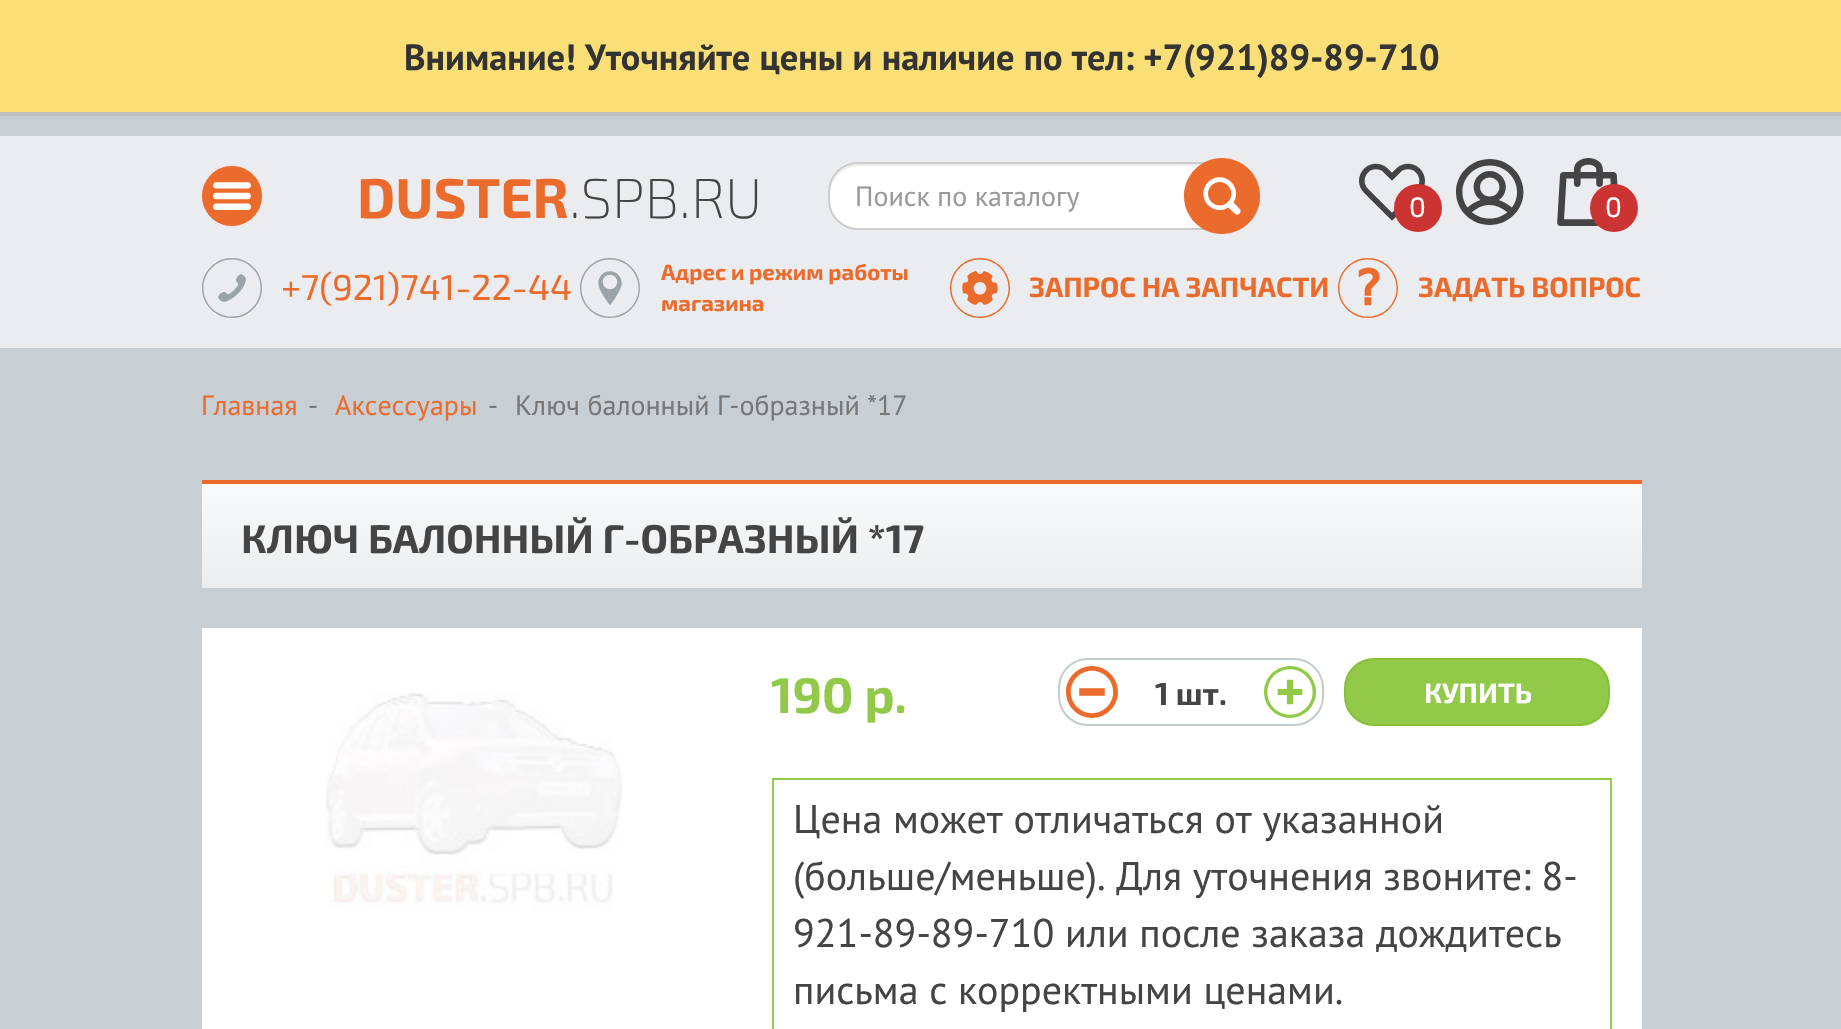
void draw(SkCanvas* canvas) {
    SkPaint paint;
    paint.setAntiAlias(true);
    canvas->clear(0xFFC7CFD4);
    paint.setColor(0xFFFADF76);
    canvas->drawRect(SkRect::MakeXYWH(0, 0, 1841, 112), paint);
    paint.setColor(0xFFC0C0C0);
    canvas->drawRect(SkRect::MakeXYWH(0, 112, 1841, 4), paint);
    SkFont font1(fontMgr->matchFamilyStyle("PT Sans", SkFontStyle::Bold()), 36.4f);
    font1.setSubpixel(true);
    paint.setColor(0xFF333333);
    canvas->drawString("Внимание! Уточняйте цены и наличие по тел: +7(921)89-89-710", 404, 70, font1, paint);
    paint.setColor(0xFFEBECF0);
    canvas->drawRect(SkRect::MakeXYWH(0, 136, 1841, 212), paint);
    canvas->drawImageRect(SkImages::DeferredFromEncodedData(SkData::MakeFromFileName("img1.png")), SkRect::MakeXYWH(202, 166, 60, 60), SkSamplingOptions());
    SkFont font2(fontMgr->matchFamilyStyle("Exo 2", SkFontStyle::Bold()), 56);
    font2.setSubpixel(true);
    paint.setColor(0xFFEB6B2C);
    canvas->drawString("DUSTER", 357, 218, font2, paint);
    SkFont font3(fontMgr->matchFamilyStyle("Exo 2", SkFontStyle(200, SkFontStyle::kNormal_Width, SkFontStyle::kUpright_Slant)), 56);
    font3.setSubpixel(true);
    paint.setColor(0xFF444444);
    canvas->drawString(".SPB.RU", 569, 218, font3, paint);
    paint.setColor(0xFFFFFFFF);
    canvas->drawRoundRect(SkRect::MakeXYWH(828, 162, 432, 68), 30, 30, paint);
    paint.setColor(0xFFECECEC);
    canvas->drawPath(SkPathBuilder().moveTo(858, 166).lineTo(1230, 166).cubicTo(1245, 166, 1258, 179, 1258, 194).lineTo(1258, 192).cubicTo(1258, 177, 1245, 164, 1230, 164).lineTo(858, 164).cubicTo(843, 164, 830, 177, 830, 192).lineTo(830, 194).cubicTo(830, 179, 843, 166, 858, 166).close().detach(), paint);
    paint.setStyle(SkPaint::kStroke_Style);
    paint.setStrokeWidth(2);
    paint.setColor(0xFFCCCCCC);
    canvas->drawRoundRect(SkRect::MakeXYWH(829, 163, 430, 66), 29, 29, paint);
    SkFont font4(fontMgr->matchFamilyStyle("PT Sans", SkFontStyle::Normal()), 28);
    font4.setSubpixel(true);
    paint.setStyle(SkPaint::kFill_Style);
    paint.setColor(0xFF999999);
    canvas->drawString("Поиск по каталогу", 855, 206, font4, paint);
    canvas->drawImageRect(SkImages::DeferredFromEncodedData(SkData::MakeFromFileName("img2.png")), SkRect::MakeXYWH(1184, 158, 76, 76), SkSamplingOptions());
    canvas->drawImageRect(SkImages::DeferredFromEncodedData(SkData::MakeFromFileName("img3.png")), SkRect::MakeXYWH(1359, 163, 66, 58), SkSamplingOptions());
    paint.setColor(0xFFCC3333);
    canvas->drawCircle(1418, 208, 24, paint);
    SkFont font5(fontMgr->matchFamilyStyle("Exo 2", SkFontStyle::Normal()), 28);
    font5.setSubpixel(true);
    paint.setColor(0xFFFFFFFF);
    canvas->drawString("0", 1409, 217, font5, paint);
    canvas->drawImageRect(SkImages::DeferredFromEncodedData(SkData::MakeFromFileName("img4.png")), SkRect::MakeXYWH(1456, 159, 68, 66), SkSamplingOptions());
    canvas->drawImageRect(SkImages::DeferredFromEncodedData(SkData::MakeFromFileName("img5.png")), SkRect::MakeXYWH(1557, 158, 61, 68), SkSamplingOptions());
    paint.setColor(0xFFCC3333);
    canvas->drawCircle(1614, 208, 24, paint);
    paint.setColor(0xFFFFFFFF);
    canvas->drawString("0", 1605, 217, font5, paint);
    canvas->drawImageRect(SkImages::DeferredFromEncodedData(SkData::MakeFromFileName("img6.png")), SkRect::MakeXYWH(202, 258, 60, 60), SkSamplingOptions());
    SkFont font6(fontMgr->matchFamilyStyle("Exo 2", SkFontStyle::Normal()), 36);
    font6.setSubpixel(true);
    paint.setColor(0xFFEB6B2C);
    canvas->drawString("+7(921)741-22-44", 281, 300, font6, paint);
    canvas->drawImageRect(SkImages::DeferredFromEncodedData(SkData::MakeFromFileName("img7.png")), SkRect::MakeXYWH(580, 258, 60, 60), SkSamplingOptions());
    SkFont font7(fontMgr->matchFamilyStyle("Exo 2", SkFontStyle::Bold()), 22);
    font7.setSubpixel(true);
    canvas->drawString("Адрес и режим работы", 661, 280, font7, paint);
    canvas->drawString("магазина", 661, 311, font7, paint);
    canvas->drawImageRect(SkImages::DeferredFromEncodedData(SkData::MakeFromFileName("img8.png")), SkRect::MakeXYWH(950, 258, 60, 60), SkSamplingOptions());
    SkFont font8(fontMgr->matchFamilyStyle("Exo 2", SkFontStyle::Bold()), 28);
    font8.setSubpixel(true);
    canvas->drawString("ЗАПРОС НА ЗАПЧАСТИ", 1029, 297, font8, paint);
    canvas->drawImageRect(SkImages::DeferredFromEncodedData(SkData::MakeFromFileName("img9.png")), SkRect::MakeXYWH(1338, 258, 60, 60), SkSamplingOptions());
    canvas->drawString("ЗАДАТЬ ВОПРОС", 1418, 297, font8, paint);
    canvas->drawString("Главная", 201, 415, font4, paint);
    paint.setColor(0xFF777777);
    canvas->drawString("-", 308, 415, font4, paint);
    paint.setColor(0xFFEB6B2C);
    canvas->drawString("Аксессуары", 335, 415, font4, paint);
    paint.setColor(0xFF777777);
    canvas->drawString("-", 488, 415, font4, paint);
    canvas->drawString("Ключ балонный Г-образный *17", 515, 415, font4, paint);
    {
        const SkColor colors[] = {0xFFF9FAFC, 0xFFECEDEF};
        const float stops[] = {0, 1};
        const SkPoint ends[] = {{922, 484}, {922, 588}};
        paint.setShader(SkGradientShader::MakeLinear(ends, colors, stops, 2, SkTileMode::kClamp));
        paint.setAlpha(255);
    }
    canvas->drawRect(SkRect::MakeXYWH(202, 484, 1440, 104), paint);
    paint.setShader(nullptr);
    paint.setColor(0xFFEB6B2C);
    canvas->drawRect(SkRect::MakeXYWH(202, 480, 1440, 4), paint);
    SkFont font9(fontMgr->matchFamilyStyle("Exo 2", SkFontStyle::Bold()), 40);
    font9.setSubpixel(true);
    paint.setColor(0xFF444444);
    canvas->drawString("КЛЮЧ БАЛОННЫЙ Г-ОБРАЗНЫЙ *17", 241, 553, font9, paint);
    paint.setColor(0xFFFFFFFF);
    canvas->drawRect(SkRect::MakeXYWH(202, 628, 1440, 401), paint);
    canvas->drawImageRect(SkImages::DeferredFromEncodedData(SkData::MakeFromFileName("img10.png")), SkRect::MakeXYWH(326, 693, 296, 217), SkSamplingOptions());
    SkFont font10(fontMgr->matchFamilyStyle("Exo 2", SkFontStyle::Bold()), 50);
    font10.setSubpixel(true);
    paint.setColor(0xFF92C949);
    canvas->drawString("190 р.", 771, 713, font10, paint);
    paint.setStyle(SkPaint::kStroke_Style);
    paint.setColor(0xFFC2CBD0);
    canvas->drawRoundRect(SkRect::MakeXYWH(1059, 659, 264, 66), 29, 29, paint);
    canvas->drawImageRect(SkImages::DeferredFromEncodedData(SkData::MakeFromFileName("img11.png")), SkRect::MakeXYWH(1066, 666, 52, 52), SkSamplingOptions());
    SkFont font11(fontMgr->matchFamilyStyle("Exo 2", SkFontStyle::Bold()), 32);
    font11.setSubpixel(true);
    paint.setStyle(SkPaint::kFill_Style);
    paint.setColor(0xFF444444);
    canvas->drawString("1 шт.", 1155, 705, font11, paint);
    canvas->drawImageRect(SkImages::DeferredFromEncodedData(SkData::MakeFromFileName("img12.png")), SkRect::MakeXYWH(1264, 666, 52, 52), SkSamplingOptions());
    paint.setColor(0xFF92C949);
    canvas->drawRoundRect(SkRect::MakeXYWH(1345, 659, 264, 66), 29, 29, paint);
    paint.setStyle(SkPaint::kStroke_Style);
    paint.setColor(0xFF86C039);
    canvas->drawRoundRect(SkRect::MakeXYWH(1345, 659, 264, 66), 29, 29, paint);
    paint.setStyle(SkPaint::kFill_Style);
    paint.setColor(0xFFFFFFFF);
    canvas->drawString("КУПИТЬ", 1424, 703, font8, paint);
    paint.setStyle(SkPaint::kStroke_Style);
    paint.setColor(0xFF92C949);
    canvas->drawRect(SkRect::MakeXYWH(773, 779, 838, 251), paint);
    SkFont font12(fontMgr->matchFamilyStyle("PT Sans", SkFontStyle::Normal()), 40);
    font12.setSubpixel(true);
    paint.setStyle(SkPaint::kFill_Style);
    paint.setColor(0xFF444444);
    canvas->drawString("Цена может отличаться от указанной", 793, 833, font12, paint);
    canvas->drawString("(больше/меньше). Для уточнения звоните: 8-", 793, 890, font12, paint);
    canvas->drawString("921-89-89-710 или после заказа дождитесь", 793, 947, font12, paint);
    canvas->drawString("письма с корректными ценами.", 793, 1004, font12, paint);
}
